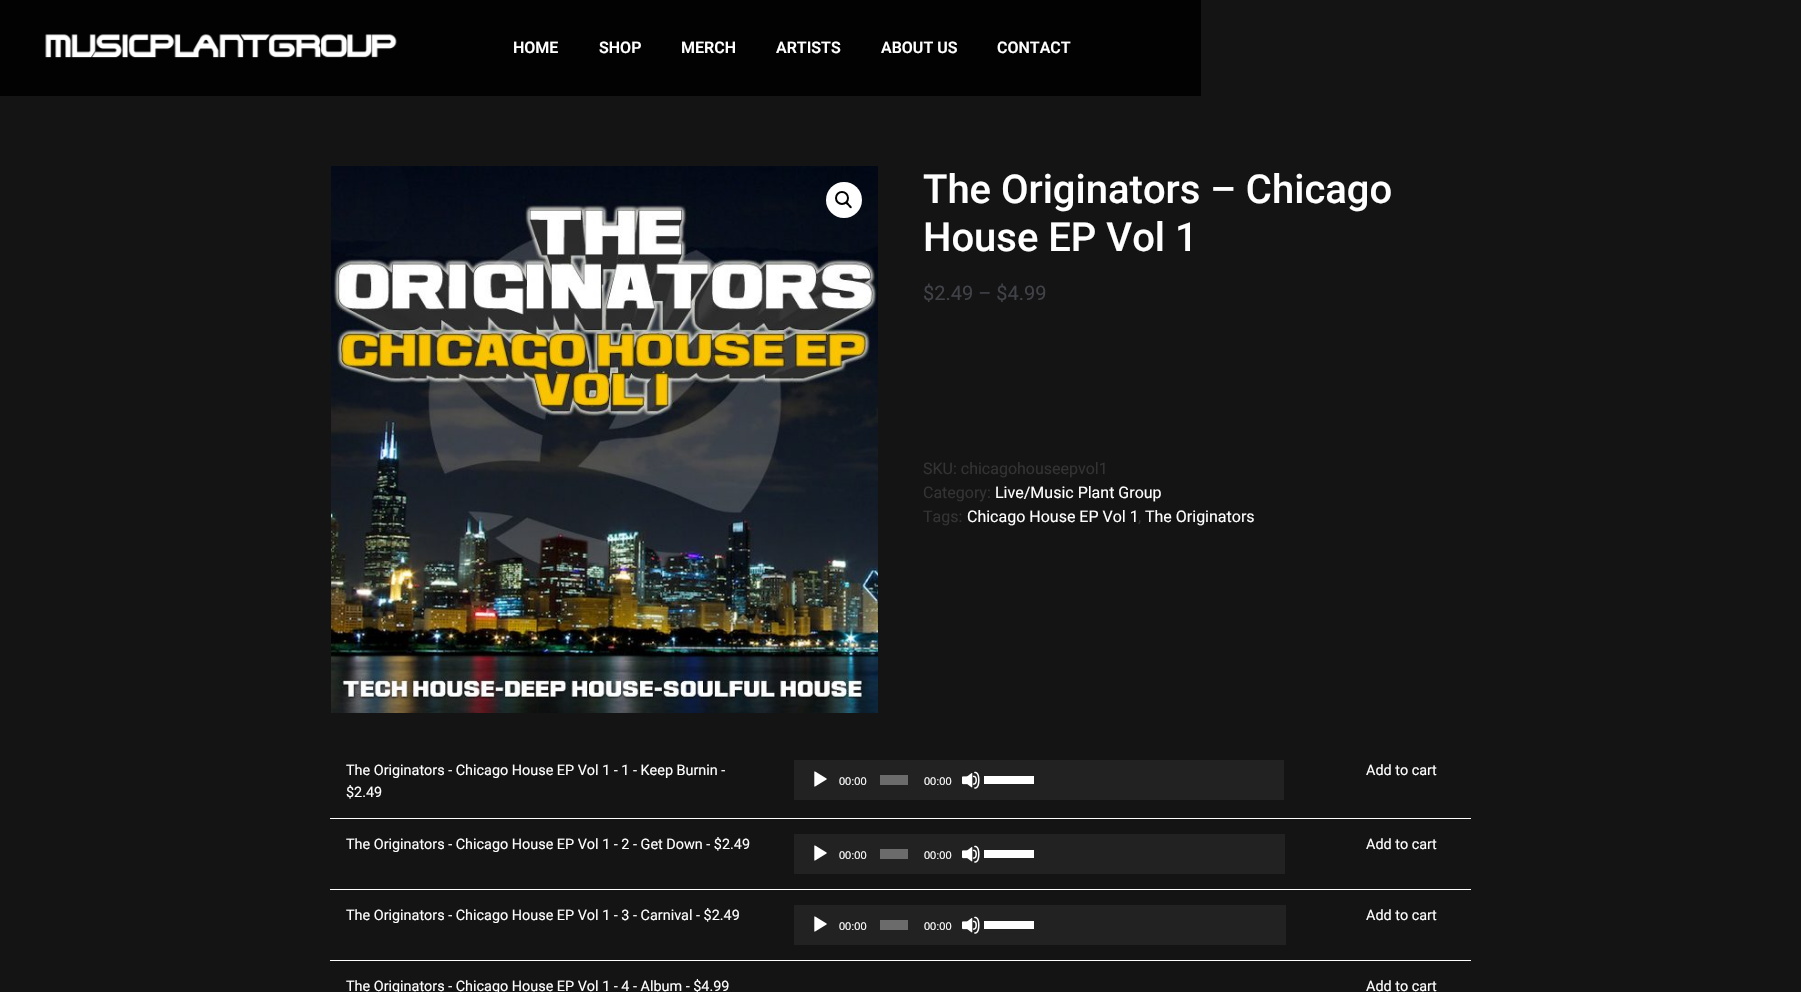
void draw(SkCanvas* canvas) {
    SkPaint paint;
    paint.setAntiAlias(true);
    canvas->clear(0xFF141414);
    paint.setColor(0xFF020202);
    canvas->drawRect(SkRect::MakeXYWH(0, 0, 1201, 96), paint);
    canvas->drawImageRect(SkImages::DeferredFromEncodedData(SkData::MakeFromFileName("img1.png")), SkRect::MakeXYWH(45, 34, 352, 24), SkSamplingOptions());
    SkFont font1(fontMgr->matchFamilyStyle("Roboto", SkFontStyle(600, SkFontStyle::kNormal_Width, SkFontStyle::kUpright_Slant)), 16);
    font1.setSubpixel(true);
    paint.setColor(0xFFFFFFFF);
    canvas->drawString("HOME", 513, 53, font1, paint);
    canvas->drawString("SHOP", 599, 53, font1, paint);
    canvas->drawString("MERCH", 681, 53, font1, paint);
    canvas->drawString("ARTISTS", 776, 53, font1, paint);
    canvas->drawString("ABOUT US", 881, 53, font1, paint);
    canvas->drawString("CONTACT", 997, 53, font1, paint);
    canvas->drawImageRect(SkImages::DeferredFromEncodedData(SkData::MakeFromFileName("img2.png")), SkRect::MakeXYWH(331, 166, 547, 547), SkSamplingOptions());
    canvas->drawCircle(844, 200, 18, paint);
    paint.setStyle(SkPaint::kStroke_Style);
    paint.setStrokeWidth(2);
    paint.setColor(0xFF000000);
    canvas->drawCircle(842, 198, 6, paint);
    paint.setStyle(SkPaint::kFill_Style);
    canvas->drawPath(SkPathBuilder().moveTo(846, 202).cubicTo(847, 201, 849, 203.5f, 849.5f, 204.5f).cubicTo(850, 205, 852.5f, 206.5f, 851.5f, 208).cubicTo(850.5f, 209, 848.5f, 206.5f, 848, 205.5f).cubicTo(847.5f, 205, 844.5f, 203.5f, 846, 202).close().detach(), paint);
    SkFont font2(fontMgr->matchFamilyStyle("Roboto", SkFontStyle(500, SkFontStyle::kNormal_Width, SkFontStyle::kUpright_Slant)), 40);
    font2.setSubpixel(true);
    paint.setColor(0xFFFFFFFF);
    canvas->drawString("The Originators – Chicago", 923, 203, font2, paint);
    canvas->drawString("House EP Vol 1", 923, 251, font2, paint);
    SkFont font3(fontMgr->matchFamilyStyle("Roboto", SkFontStyle::Normal()), 20);
    font3.setSubpixel(true);
    paint.setColor(0xFF404248);
    canvas->drawString("$2.49 – $4.99", 923, 300, font3, paint);
    SkFont font4(fontMgr->matchFamilyStyle("Roboto", SkFontStyle::Normal()), 16);
    font4.setSubpixel(true);
    paint.setColor(0xFF333333);
    canvas->drawString("SKU: chicagohouseepvol1", 923, 474, font4, paint);
    canvas->drawString("Category:", 923, 498, font4, paint);
    paint.setColor(0xFFFFFFFF);
    canvas->drawString("Live/Music Plant Group", 995, 498, font4, paint);
    paint.setColor(0xFF333333);
    canvas->drawString("Tags:", 923, 522, font4, paint);
    paint.setColor(0xFFFFFFFF);
    canvas->drawString("Chicago House EP Vol 1", 967, 522, font4, paint);
    paint.setColor(0xFF333333);
    canvas->drawString(",", 1138, 522, font4, paint);
    paint.setColor(0xFFFFFFFF);
    canvas->drawString("The Originators", 1145, 522, font4, paint);
    SkFont font5(fontMgr->matchFamilyStyle("Roboto", SkFontStyle::Normal()), 14.4f);
    font5.setSubpixel(true);
    canvas->drawString("The Originators - Chicago House EP Vol 1 - 1 - Keep Burnin -", 346, 775, font5, paint);
    canvas->drawString("$2.49", 346, 797, font5, paint);
    canvas->drawRect(SkRect::MakeXYWH(330, 818, 1141, 1), paint);
    canvas->drawString("Add to cart", 1366, 775, font5, paint);
    paint.setColor(0xFF222222);
    canvas->drawRect(SkRect::MakeXYWH(794, 760, 490, 40), paint);
    canvas->drawImageRect(SkImages::DeferredFromEncodedData(SkData::MakeFromFileName("img3.png")), SkRect::MakeXYWH(814, 771, 13, 16), SkSamplingOptions());
    SkFont font6(fontMgr->matchFamilyStyle("Liberation Sans", SkFontStyle::Normal()), 11);
    font6.setSubpixel(true);
    paint.setColor(0xFFFFFFFF);
    canvas->drawString("00:00", 839, 785, font6, paint);
    paint.setColor(0xFF6B6B6B);
    canvas->drawRect(SkRect::MakeXYWH(880, 775, 28, 10), paint);
    paint.setColor(0xFFFFFFFF);
    canvas->drawString("00:00", 924, 785, font6, paint);
    canvas->drawImageRect(SkImages::DeferredFromEncodedData(SkData::MakeFromFileName("img4.png")), SkRect::MakeXYWH(962, 771, 18, 18), SkSamplingOptions());
    canvas->drawRect(SkRect::MakeXYWH(984, 776, 50, 8), paint);
    canvas->drawString("The Originators - Chicago House EP Vol 1 - 2 - Get Down - $2.49", 346, 849, font5, paint);
    canvas->drawRect(SkRect::MakeXYWH(330, 889, 1141, 1), paint);
    canvas->drawString("Add to cart", 1366, 849, font5, paint);
    paint.setColor(0xFF222222);
    canvas->drawRect(SkRect::MakeXYWH(794, 834, 491, 40), paint);
    canvas->drawImageRect(SkImages::DeferredFromEncodedData(SkData::MakeFromFileName("img3.png")), SkRect::MakeXYWH(814, 845, 13, 16), SkSamplingOptions());
    paint.setColor(0xFFFFFFFF);
    canvas->drawString("00:00", 839, 859, font6, paint);
    paint.setColor(0xFF6B6B6B);
    canvas->drawRect(SkRect::MakeXYWH(880, 849, 28, 10), paint);
    paint.setColor(0xFFFFFFFF);
    canvas->drawString("00:00", 924, 859, font6, paint);
    canvas->drawImageRect(SkImages::DeferredFromEncodedData(SkData::MakeFromFileName("img4.png")), SkRect::MakeXYWH(962, 845, 18, 18), SkSamplingOptions());
    canvas->drawRect(SkRect::MakeXYWH(984, 850, 50, 8), paint);
    canvas->drawString("The Originators - Chicago House EP Vol 1 - 3 - Carnival - $2.49", 346, 920, font5, paint);
    canvas->drawRect(SkRect::MakeXYWH(330, 960, 1141, 1), paint);
    canvas->drawString("Add to cart", 1366, 920, font5, paint);
    paint.setColor(0xFF222222);
    canvas->drawRect(SkRect::MakeXYWH(794, 905, 492, 40), paint);
    canvas->drawImageRect(SkImages::DeferredFromEncodedData(SkData::MakeFromFileName("img3.png")), SkRect::MakeXYWH(814, 916, 13, 16), SkSamplingOptions());
    paint.setColor(0xFFFFFFFF);
    canvas->drawString("00:00", 839, 930, font6, paint);
    paint.setColor(0xFF6B6B6B);
    canvas->drawRect(SkRect::MakeXYWH(880, 920, 28, 10), paint);
    paint.setColor(0xFFFFFFFF);
    canvas->drawString("00:00", 924, 930, font6, paint);
    canvas->drawImageRect(SkImages::DeferredFromEncodedData(SkData::MakeFromFileName("img4.png")), SkRect::MakeXYWH(962, 916, 18, 18), SkSamplingOptions());
    canvas->drawRect(SkRect::MakeXYWH(984, 921, 50, 8), paint);
    canvas->drawString("The Originators - Chicago House EP Vol 1 - 4 - Album - $4.99", 346, 991, font5, paint);
    canvas->drawString("Add to cart", 1366, 991, font5, paint);
}
